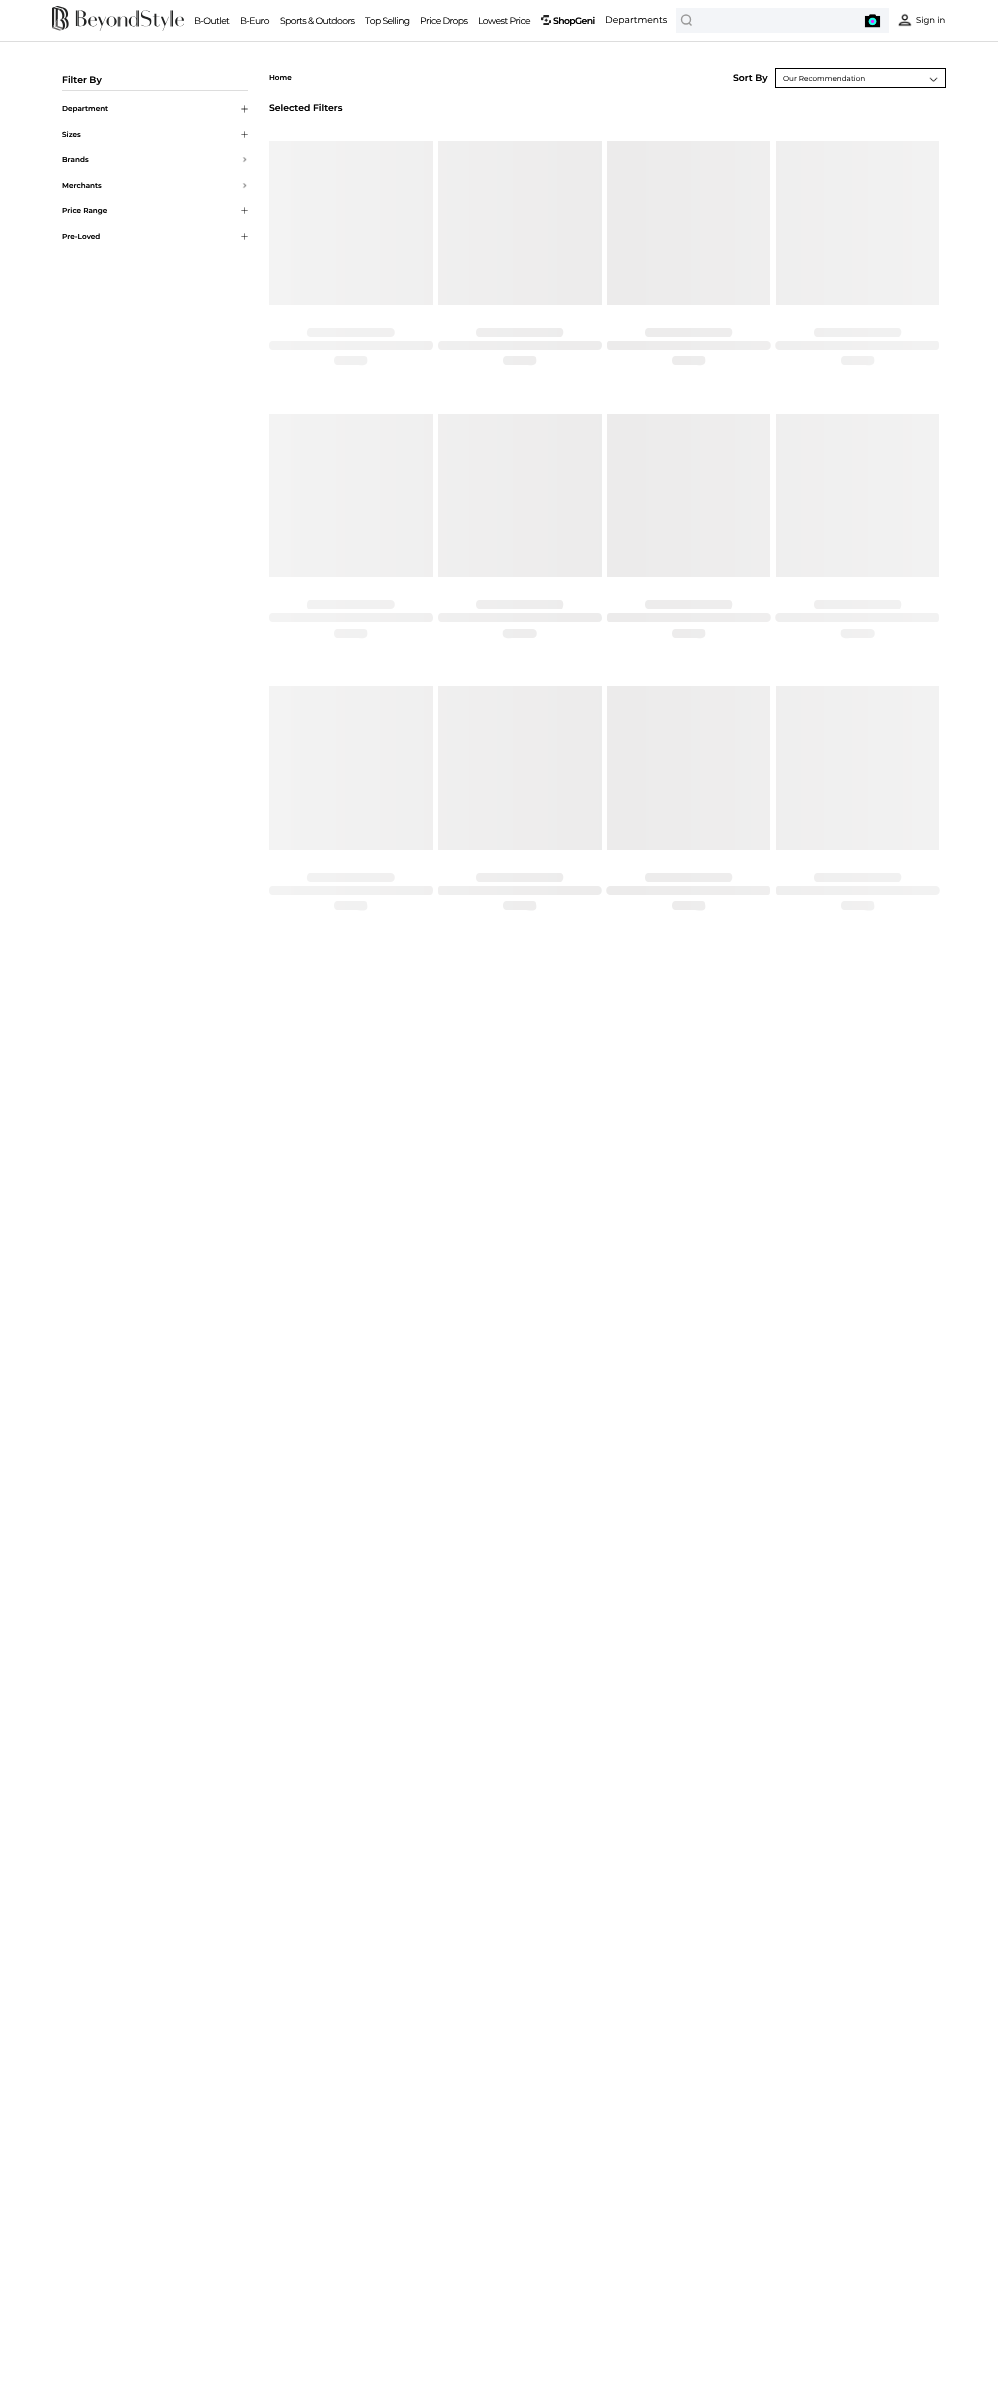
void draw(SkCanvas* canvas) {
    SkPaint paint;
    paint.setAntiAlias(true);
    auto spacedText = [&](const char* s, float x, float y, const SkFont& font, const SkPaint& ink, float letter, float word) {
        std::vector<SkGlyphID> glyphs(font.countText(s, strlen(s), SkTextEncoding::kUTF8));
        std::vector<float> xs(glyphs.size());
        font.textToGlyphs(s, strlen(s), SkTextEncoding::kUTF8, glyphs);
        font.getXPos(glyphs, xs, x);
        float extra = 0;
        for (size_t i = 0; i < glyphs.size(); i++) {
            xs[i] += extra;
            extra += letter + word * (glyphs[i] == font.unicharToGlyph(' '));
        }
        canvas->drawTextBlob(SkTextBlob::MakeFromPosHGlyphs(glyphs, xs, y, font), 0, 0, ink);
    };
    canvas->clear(0xFFFFFFFF);
    paint.setColor(0xFFDDDDDD);
    canvas->drawRect(SkRect::MakeXYWH(0, 41, 998, 1), paint);
    canvas->drawImageRect(SkImages::DeferredFromEncodedData(SkData::MakeFromFileName("img1.png")), SkRect::MakeXYWH(52, 6, 132, 25), SkSamplingOptions());
    SkFont font1(fontMgr->matchFamilyStyle("Montserrat", SkFontStyle::Normal()), 9.25f);
    font1.setSubpixel(true);
    paint.setColor(0xFF000000);
    spacedText("B-Outlet", 194, 24, font1, paint, -0.6f, 0);
    spacedText("B-Euro", 240, 24, font1, paint, -0.6f, 0);
    spacedText("Sports & Outdoors", 280, 24, font1, paint, -0.6f, 0);
    spacedText("Top Selling", 365, 24, font1, paint, -0.6f, 0);
    spacedText("Price Drops", 420, 24, font1, paint, -0.6f, 0);
    spacedText("Lowest Price", 478, 24, font1, paint, -0.6f, 0);
    canvas->drawImageRect(SkImages::DeferredFromEncodedData(SkData::MakeFromFileName("img2.png")), SkRect::MakeXYWH(541, 15, 10, 10), SkSamplingOptions());
    SkFont font2(fontMgr->matchFamilyStyle("Montserrat", SkFontStyle(600, SkFontStyle::kNormal_Width, SkFontStyle::kUpright_Slant)), 9.25f);
    font2.setSubpixel(true);
    spacedText("ShopGeni", 553, 24, font2, paint, -0.6f, 0);
    canvas->drawString("Departments", 605, 23, font1, paint);
    paint.setColor(0xFFF3F5F8);
    canvas->drawRect(SkRect::MakeXYWH(676, 8, 213, 25), paint);
    paint.setStyle(SkPaint::kStroke_Style);
    paint.setStrokeWidth(1.4f);
    paint.setColor(0xFF999999);
    canvas->drawCircle(686, 19.5f, 4.5f, paint);
    canvas->drawPath(SkPathBuilder().moveTo(689, 23).lineTo(691.5f, 25.5f).detach(), paint);
    canvas->drawImageRect(SkImages::DeferredFromEncodedData(SkData::MakeFromFileName("img3.png")), SkRect::MakeXYWH(864, 14, 17, 14), SkSamplingOptions());
    canvas->drawImageRect(SkImages::DeferredFromEncodedData(SkData::MakeFromFileName("img4.png")), SkRect::MakeXYWH(898, 13, 14, 14), SkSamplingOptions());
    SkFont font3(fontMgr->matchFamilyStyle("Montserrat", SkFontStyle::Normal()), 8.5f);
    font3.setSubpixel(true);
    paint.setStyle(SkPaint::kFill_Style);
    paint.setColor(0xFF000000);
    canvas->drawString("Sign in", 916, 23, font3, paint);
    paint.setColor(0xFFDDDDDD);
    canvas->drawRect(SkRect::MakeXYWH(62, 90, 186, 1), paint);
    paint.setColor(0xFF000000);
    canvas->drawString("Filter By", 62, 83, font2, paint);
    SkFont font4(fontMgr->matchFamilyStyle("Montserrat", SkFontStyle(600, SkFontStyle::kNormal_Width, SkFontStyle::kUpright_Slant)), 7.25f);
    font4.setSubpixel(true);
    canvas->drawString("Department", 62, 111, font4, paint);
    canvas->drawImageRect(SkImages::DeferredFromEncodedData(SkData::MakeFromFileName("img5.png")), SkRect::MakeXYWH(241, 105, 7, 8), SkSamplingOptions());
    canvas->drawString("Sizes", 62, 137, font4, paint);
    canvas->drawImageRect(SkImages::DeferredFromEncodedData(SkData::MakeFromFileName("img6.png")), SkRect::MakeXYWH(241, 131, 7, 7), SkSamplingOptions());
    canvas->drawString("Brands", 62, 162, font4, paint);
    canvas->drawImageRect(SkImages::DeferredFromEncodedData(SkData::MakeFromFileName("img7.png")), SkRect::MakeXYWH(242, 157, 5, 6), SkSamplingOptions());
    canvas->drawString("Merchants", 62, 188, font4, paint);
    canvas->drawImageRect(SkImages::DeferredFromEncodedData(SkData::MakeFromFileName("img7.png")), SkRect::MakeXYWH(242, 183, 5, 6), SkSamplingOptions());
    canvas->drawString("Price Range", 62, 213, font4, paint);
    canvas->drawImageRect(SkImages::DeferredFromEncodedData(SkData::MakeFromFileName("img6.png")), SkRect::MakeXYWH(241, 207, 7, 7), SkSamplingOptions());
    canvas->drawString("Pre-Loved", 62, 239, font4, paint);
    canvas->drawImageRect(SkImages::DeferredFromEncodedData(SkData::MakeFromFileName("img6.png")), SkRect::MakeXYWH(241, 233, 7, 7), SkSamplingOptions());
    canvas->drawString("Sort By", 733, 81, font2, paint);
    paint.setStyle(SkPaint::kStroke_Style);
    paint.setStrokeWidth(1);
    canvas->drawRect(SkRect::MakeXYWH(775.5f, 68.5f, 170, 19), paint);
    SkFont font5(fontMgr->matchFamilyStyle("Montserrat", SkFontStyle::Normal()), 7.25f);
    font5.setSubpixel(true);
    paint.setStyle(SkPaint::kFill_Style);
    canvas->drawString("Our Recommendation", 783, 81, font5, paint);
    canvas->drawImageRect(SkImages::DeferredFromEncodedData(SkData::MakeFromFileName("img8.png")), SkRect::MakeXYWH(929, 77, 9, 5), SkSamplingOptions());
    canvas->drawString("Selected Filters", 269, 111, font2, paint);
    {
        const SkColor colors[] = {0xFFF3F3F3, 0xFFECEBEB, 0xFFF3F3F3};
        const float stops[] = {0, 0.5f, 1};
        const SkPoint ends[] = {{269, 141}, {979, 141}};
        paint.setShader(SkGradientShader::MakeLinear(ends, colors, stops, 3, SkTileMode::kClamp));
        paint.setAlpha(255);
    }
    canvas->drawPath(SkPathBuilder(SkPathFillType::kEvenOdd).moveTo(776, 141).lineTo(939, 141).lineTo(939, 305).lineTo(776, 305).close().moveTo(607, 141).lineTo(770, 141).lineTo(770, 305).lineTo(607, 305).close().moveTo(438, 141).lineTo(602, 141).lineTo(602, 305).lineTo(438, 305).close().moveTo(433, 141).lineTo(433, 305).lineTo(269, 305).lineTo(269, 141).close().moveTo(310, 328).cubicTo(307, 328, 306, 334, 308, 336).lineTo(310, 337).lineTo(391, 337).cubicTo(396, 337, 396, 328, 391, 328).close().moveTo(479, 328).cubicTo(475, 328, 475, 337, 479, 337).lineTo(561, 337).lineTo(562, 336).cubicTo(564, 334, 564, 328, 560, 328).close().moveTo(648, 328).cubicTo(644, 328, 644, 337, 648, 337).lineTo(730, 337).lineTo(731, 336).cubicTo(733, 334, 733, 328, 729, 328).close().moveTo(817, 328).cubicTo(813, 328, 813, 337, 817, 337).lineTo(899, 337).lineTo(900, 336).cubicTo(902, 334, 902, 328, 898, 328).close().moveTo(272, 341).cubicTo(268, 341, 268, 350, 272, 350).lineTo(430, 350).cubicTo(432, 350, 433, 347, 433, 345).cubicTo(433, 343, 432, 341, 430, 341).close().moveTo(441, 341).cubicTo(437, 341, 437, 350, 441, 350).lineTo(598, 350).cubicTo(601, 350, 602, 347, 602, 345).cubicTo(602, 343, 601, 341, 598, 341).close().moveTo(610, 341).cubicTo(607, 341, 607, 343, 607, 345).cubicTo(607, 347, 607, 350, 610, 350).lineTo(767, 350).cubicTo(772, 350, 772, 341, 767, 341).close().moveTo(779, 341).cubicTo(774, 341, 774, 350, 779, 350).lineTo(936, 350).cubicTo(939, 350, 939, 347, 939, 345).cubicTo(939, 343, 939, 341, 936, 341).close().moveTo(337, 356).cubicTo(333, 356, 333, 365, 337, 365).lineTo(355, 365).cubicTo(362, 365, 369, 367, 367, 358).cubicTo(367, 357, 366, 356, 364, 356).close().moveTo(506, 356).cubicTo(502, 356, 502, 365, 506, 365).lineTo(524, 365).cubicTo(531, 365, 538, 367, 536, 358).cubicTo(536, 357, 535, 356, 533, 356).close().moveTo(675, 356).cubicTo(671, 356, 671, 365, 675, 365).lineTo(693, 365).cubicTo(700, 365, 707, 367, 705, 358).cubicTo(705, 357, 704, 356, 702, 356).close().moveTo(844, 356).cubicTo(840, 356, 840, 365, 844, 365).lineTo(862, 365).cubicTo(869, 365, 876, 367, 874, 358).cubicTo(874, 357, 873, 356, 871, 356).close().moveTo(269, 414).lineTo(269, 577).lineTo(433, 577).lineTo(433, 414).close().moveTo(438, 414).lineTo(438, 577).lineTo(602, 577).lineTo(602, 414).close().moveTo(607, 414).lineTo(607, 577).lineTo(770, 577).lineTo(770, 414).close().moveTo(776, 414).lineTo(776, 577).lineTo(939, 577).lineTo(939, 414).close().moveTo(310, 600).cubicTo(307, 600, 306, 606, 308, 609).lineTo(310, 609).lineTo(391, 609).cubicTo(396, 609, 396, 600, 391, 600).close().moveTo(479, 600).cubicTo(475, 600, 475, 609, 479, 609).lineTo(561, 609).lineTo(562, 609).cubicTo(564, 606, 564, 600, 560, 600).close().moveTo(648, 600).cubicTo(644, 600, 644, 609, 648, 609).lineTo(730, 609).lineTo(731, 609).cubicTo(733, 606, 733, 600, 729, 600).close().moveTo(817, 600).cubicTo(813, 600, 813, 609, 817, 609).lineTo(899, 609).lineTo(900, 609).cubicTo(902, 606, 902, 600, 898, 600).close().moveTo(272, 613).cubicTo(268, 613, 268, 622, 272, 622).lineTo(430, 622).cubicTo(432, 622, 433, 620, 433, 618).cubicTo(433, 616, 432, 613, 430, 613).close().moveTo(441, 613).cubicTo(437, 613, 437, 622, 441, 622).lineTo(598, 622).cubicTo(601, 622, 602, 620, 602, 618).cubicTo(602, 616, 601, 613, 598, 613).close().moveTo(610, 613).cubicTo(607, 613, 607, 616, 607, 618).cubicTo(607, 620, 607, 622, 610, 622).lineTo(767, 622).cubicTo(772, 622, 772, 613, 767, 613).close().moveTo(779, 613).cubicTo(774, 613, 774, 622, 779, 622).lineTo(936, 622).cubicTo(939, 622, 939, 620, 939, 618).cubicTo(939, 616, 939, 613, 936, 613).close().moveTo(337, 629).cubicTo(333, 629, 333, 638, 337, 638).lineTo(355, 638).cubicTo(362, 638, 369, 640, 367, 631).cubicTo(367, 630, 366, 629, 364, 629).close().moveTo(506, 629).cubicTo(505, 629, 504, 630, 503, 631).cubicTo(501, 640, 509, 638, 515, 638).lineTo(533, 638).cubicTo(538, 638, 538, 629, 533, 629).close().moveTo(675, 629).cubicTo(671, 629, 671, 638, 675, 638).lineTo(693, 638).cubicTo(700, 638, 707, 640, 705, 631).cubicTo(705, 630, 704, 629, 702, 629).close().moveTo(844, 629).cubicTo(843, 629, 841, 630, 841, 631).cubicTo(839, 640, 847, 638, 853, 638).lineTo(871, 638).cubicTo(876, 638, 876, 629, 871, 629).close().moveTo(269, 686).lineTo(269, 850).lineTo(433, 850).lineTo(433, 686).close().moveTo(438, 686).lineTo(438, 850).lineTo(602, 850).lineTo(602, 686).close().moveTo(607, 686).lineTo(607, 850).lineTo(770, 850).lineTo(770, 686).close().moveTo(776, 686).lineTo(776, 850).lineTo(939, 850).lineTo(939, 686).close().moveTo(310, 873).cubicTo(307, 873, 306, 879, 308, 881).lineTo(310, 882).lineTo(391, 882).cubicTo(396, 882, 396, 873, 391, 873).close().moveTo(479, 873).cubicTo(475, 873, 475, 882, 479, 882).lineTo(561, 882).lineTo(562, 881).cubicTo(564, 879, 564, 873, 560, 873).close().moveTo(648, 873).cubicTo(644, 873, 644, 882, 648, 882).lineTo(730, 882).lineTo(731, 881).cubicTo(733, 879, 733, 873, 729, 873).close().moveTo(817, 873).cubicTo(813, 873, 813, 882, 817, 882).lineTo(899, 882).lineTo(900, 881).cubicTo(902, 879, 902, 873, 898, 873).close().moveTo(272, 886).cubicTo(268, 886, 268, 895, 272, 895).lineTo(430, 895).cubicTo(432, 895, 433, 893, 433, 890).cubicTo(433, 888, 432, 886, 430, 886).close().moveTo(441, 886).cubicTo(438, 886, 438, 888, 438, 890).cubicTo(438, 893, 438, 895, 441, 895).lineTo(598, 895).cubicTo(603, 895, 603, 886, 598, 886).close().moveTo(610, 886).cubicTo(605, 886, 605, 895, 610, 895).lineTo(767, 895).cubicTo(770, 895, 770, 893, 770, 890).cubicTo(770, 888, 770, 886, 767, 886).close().moveTo(779, 886).cubicTo(776, 886, 776, 888, 776, 890).cubicTo(776, 893, 776, 895, 779, 895).lineTo(936, 895).cubicTo(941, 895, 941, 886, 936, 886).close().moveTo(337, 901).cubicTo(333, 901, 333, 910, 337, 910).lineTo(355, 910).cubicTo(362, 910, 369, 913, 367, 904).cubicTo(367, 902, 366, 901, 364, 901).close().moveTo(506, 901).cubicTo(502, 901, 502, 910, 506, 910).lineTo(524, 910).cubicTo(531, 910, 538, 913, 536, 904).cubicTo(536, 902, 535, 901, 533, 901).close().moveTo(675, 901).cubicTo(671, 901, 671, 910, 675, 910).lineTo(693, 910).cubicTo(700, 910, 707, 913, 705, 904).cubicTo(705, 902, 704, 901, 702, 901).close().moveTo(844, 901).cubicTo(840, 901, 840, 910, 844, 910).lineTo(862, 910).cubicTo(869, 910, 876, 913, 874, 904).cubicTo(874, 902, 873, 901, 871, 901).close().detach(), paint);
    paint.setShader(nullptr);
    paint.setColor(0xFF000000);
    canvas->drawString("Home", 269, 80, font4, paint);
}
